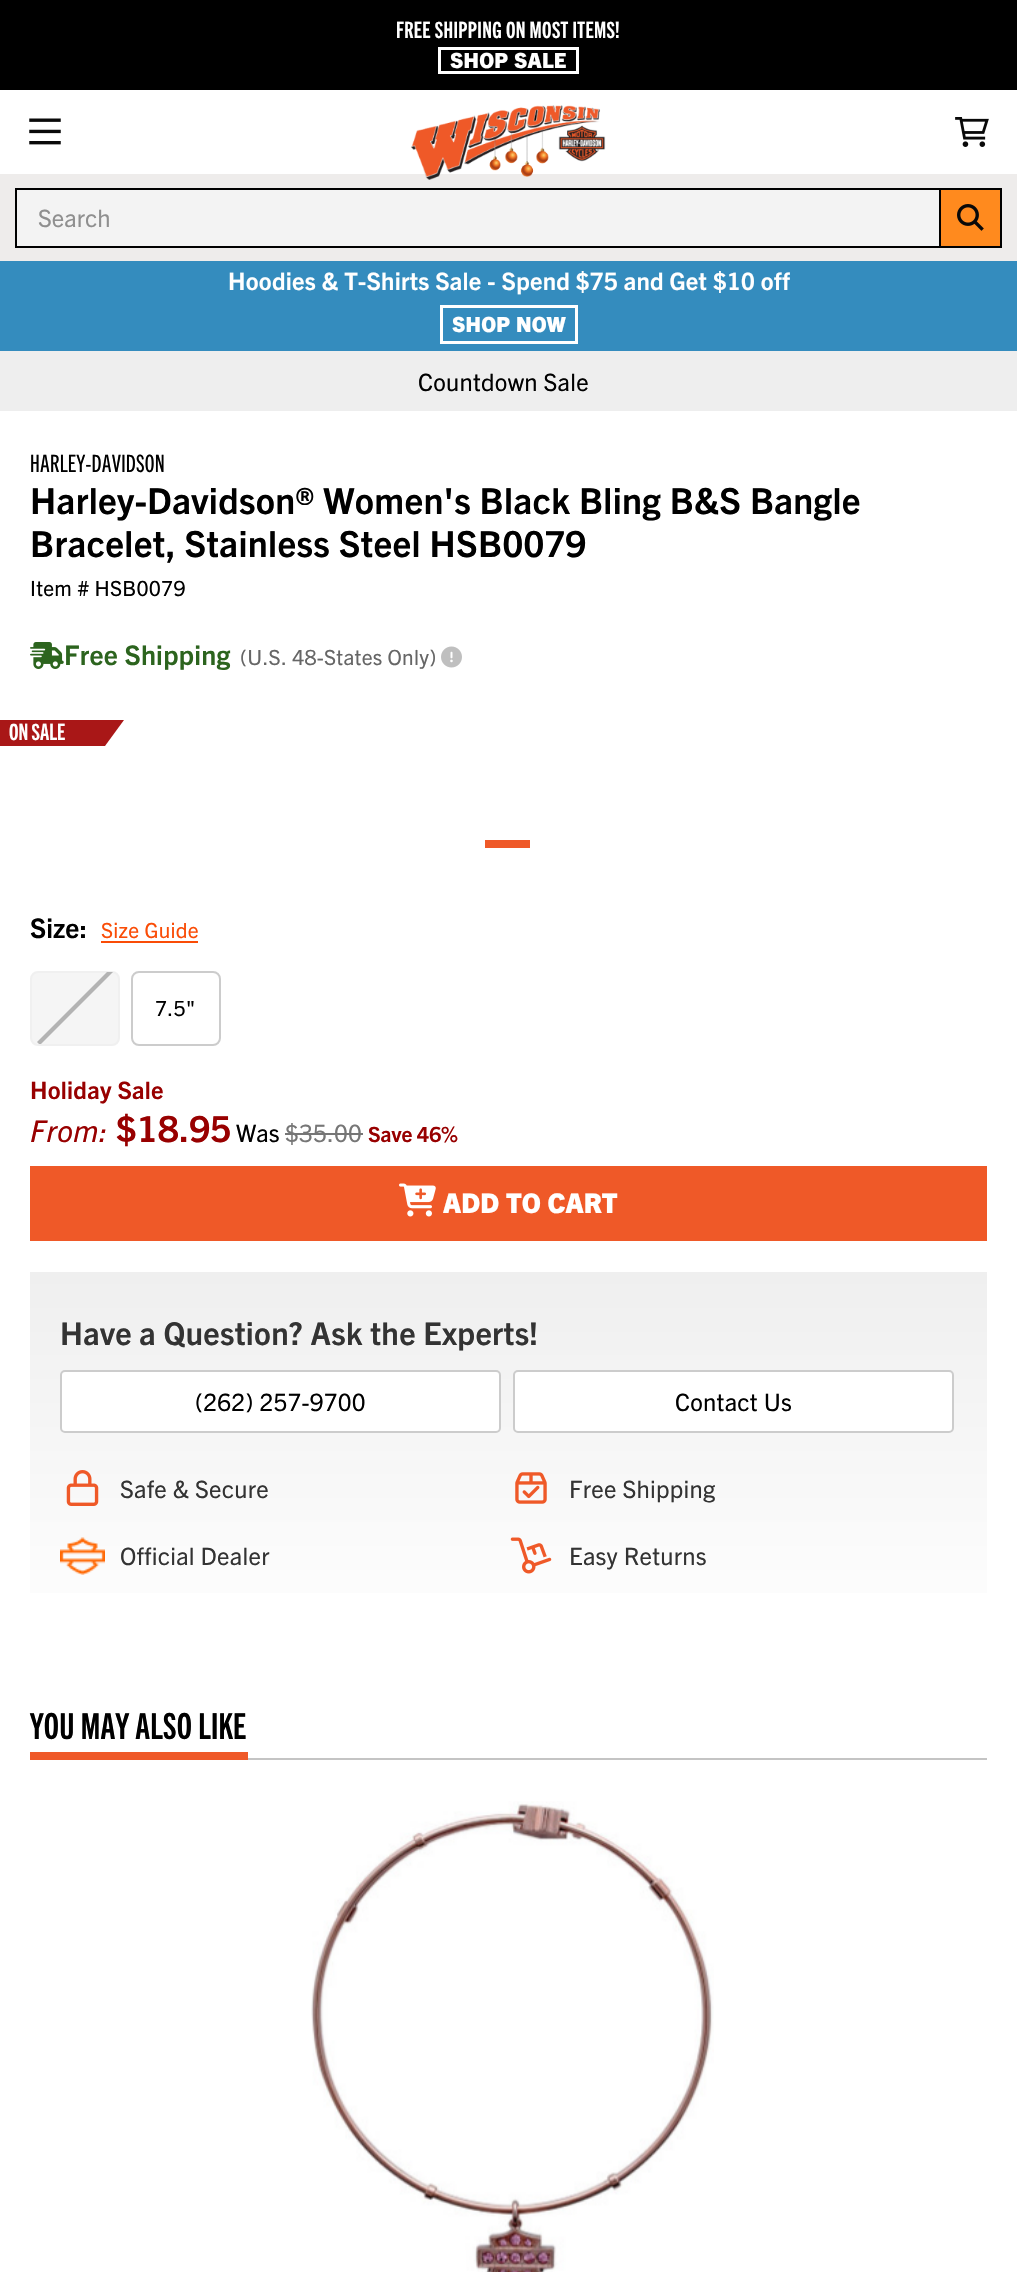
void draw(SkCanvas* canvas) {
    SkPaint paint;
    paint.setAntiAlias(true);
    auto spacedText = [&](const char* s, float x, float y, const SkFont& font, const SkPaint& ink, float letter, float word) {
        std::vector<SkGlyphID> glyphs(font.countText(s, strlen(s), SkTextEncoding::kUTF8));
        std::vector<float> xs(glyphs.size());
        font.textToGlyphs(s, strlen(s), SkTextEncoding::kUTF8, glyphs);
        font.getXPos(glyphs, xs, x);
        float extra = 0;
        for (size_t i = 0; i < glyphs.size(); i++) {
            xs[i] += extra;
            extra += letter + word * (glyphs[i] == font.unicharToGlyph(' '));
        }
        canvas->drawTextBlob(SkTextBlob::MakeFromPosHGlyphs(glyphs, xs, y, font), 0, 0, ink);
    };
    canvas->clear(0xFFFFFFFF);
    paint.setColor(0xFF000000);
    canvas->drawRect(SkRect::MakeXYWH(0, 0, 1017, 90), paint);
    SkFont font1(fontMgr->matchFamilyStyle("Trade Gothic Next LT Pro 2", SkFontStyle::Bold()), 22.5f);
    font1.setSubpixel(true);
    paint.setColor(0xFFFFFFFF);
    spacedText("FREE SHIPPING ON MOST ITEMS!", 396, 38, font1, paint, 0.35f, 0);
    paint.setStyle(SkPaint::kStroke_Style);
    paint.setStrokeWidth(3);
    canvas->drawRect(SkRect::MakeXYWH(439.5f, 48.5f, 138, 24), paint);
    SkFont font2(fontMgr->matchFamilyStyle("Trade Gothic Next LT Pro", SkFontStyle(800, SkFontStyle::kNormal_Width, SkFontStyle::kUpright_Slant)), 21);
    font2.setSubpixel(true);
    paint.setStyle(SkPaint::kFill_Style);
    spacedText("SHOP SALE", 450, 68, font2, paint, 0.25f, 0);
    paint.setColor(0xFFEEECEB);
    canvas->drawRect(SkRect::MakeXYWH(0, 174, 1017, 87), paint);
    canvas->drawImageRect(SkImages::DeferredFromEncodedData(SkData::MakeFromFileName("img1.png")), SkRect::MakeXYWH(411, 105, 195, 75), SkSamplingOptions());
    canvas->drawImageRect(SkImages::DeferredFromEncodedData(SkData::MakeFromFileName("img2.png")), SkRect::MakeXYWH(29, 118, 32, 27), SkSamplingOptions());
    canvas->drawImageRect(SkImages::DeferredFromEncodedData(SkData::MakeFromFileName("img3.png")), SkRect::MakeXYWH(955, 117, 34, 30), SkSamplingOptions());
    paint.setColor(0xFFF3F3F3);
    canvas->drawRect(SkRect::MakeXYWH(17, 190, 922, 56), paint);
    paint.setStyle(SkPaint::kStroke_Style);
    paint.setStrokeWidth(2);
    paint.setColor(0xFF000000);
    canvas->drawRect(SkRect::MakeXYWH(16, 189, 985, 58), paint);
    SkFont font3(fontMgr->matchFamilyStyle("Trade Gothic Next LT Pro 2", SkFontStyle::Normal()), 24);
    font3.setSubpixel(true);
    paint.setStyle(SkPaint::kFill_Style);
    paint.setColor(0xFF8F8F8F);
    canvas->drawString("Search", 38, 227, font3, paint);
    paint.setColor(0xFFFF8A1E);
    canvas->drawRect(SkRect::MakeXYWH(940, 189, 61, 58), paint);
    paint.setStyle(SkPaint::kStroke_Style);
    paint.setColor(0xFF000000);
    canvas->drawRect(SkRect::MakeXYWH(940, 189, 61, 58), paint);
    canvas->drawImageRect(SkImages::DeferredFromEncodedData(SkData::MakeFromFileName("img4.png")), SkRect::MakeXYWH(957, 204, 27, 27), SkSamplingOptions());
    paint.setStyle(SkPaint::kFill_Style);
    paint.setColor(0xFF348CBE);
    canvas->drawRect(SkRect::MakeXYWH(0, 261, 1017, 90), paint);
    SkFont font4(fontMgr->matchFamilyStyle("Trade Gothic Next LT Pro", SkFontStyle::Bold()), 24);
    font4.setSubpixel(true);
    paint.setColor(0xFFFFFFFF);
    spacedText("Hoodies & T-Shirts Sale - Spend $75 and Get $10 off", 228, 290, font4, paint, 0.25f, 0);
    paint.setStyle(SkPaint::kStroke_Style);
    paint.setStrokeWidth(3);
    canvas->drawRect(SkRect::MakeXYWH(441.5f, 306.5f, 135, 36), paint);
    paint.setStyle(SkPaint::kFill_Style);
    spacedText("SHOP NOW", 452, 332, font2, paint, 0.25f, 0);
    paint.setColor(0xFFEEEEEE);
    canvas->drawRect(SkRect::MakeXYWH(0, 351, 1017, 60), paint);
    paint.setColor(0xFF000000);
    spacedText("Countdown Sale", 418, 391, font3, paint, 0.25f, 0);
    SkFont font5(fontMgr->matchFamilyStyle("Trade Gothic Next LT Pro", SkFontStyle::Normal()), 24);
    font5.setSubpixel(true);
    spacedText("HARLEY-DAVIDSON", 30, 472, font5, paint, 0.25f, 0);
    SkFont font6(fontMgr->matchFamilyStyle("Trade Gothic Next LT Pro", SkFontStyle::Bold()), 36);
    font6.setSubpixel(true);
    spacedText("Harley-Davidson® Women's Black Bling B&S Bangle", 30, 514, font6, paint, 0.35f, 0);
    spacedText("Bracelet, Stainless Steel HSB0079", 30, 557, font6, paint, 0.35f, 0);
    SkFont font7(fontMgr->matchFamilyStyle("Trade Gothic Next LT Pro 2", SkFontStyle::Normal()), 21);
    font7.setSubpixel(true);
    spacedText("Item # HSB0079", 30, 596, font7, paint, 0.25f, 0);
    canvas->drawImageRect(SkImages::DeferredFromEncodedData(SkData::MakeFromFileName("img5.png")), SkRect::MakeXYWH(30, 642, 34, 27), SkSamplingOptions());
    SkFont font8(fontMgr->matchFamilyStyle("Trade Gothic Next LT Pro", SkFontStyle::Bold()), 27);
    font8.setSubpixel(true);
    paint.setColor(0xFF2C641E);
    spacedText("Free Shipping", 64, 665, font8, paint, 0.25f, 0);
    paint.setColor(0xFF666666);
    spacedText("(U.S. 48-States Only)", 240, 665, font7, paint, 0.25f, 0);
    canvas->drawImageRect(SkImages::DeferredFromEncodedData(SkData::MakeFromFileName("img6.png")), SkRect::MakeXYWH(441, 646, 21, 22), SkSamplingOptions());
    paint.setColor(0xFFA91717);
    canvas->drawPath(SkPathBuilder().moveTo(0, 720).lineTo(0, 746).lineTo(105, 746).lineTo(124, 720).close().detach(), paint);
    paint.setColor(0xFFFFFFFF);
    canvas->drawString("ON SALE", 9, 740, font1, paint);
    paint.setColor(0xFFEF5928);
    canvas->drawRect(SkRect::MakeXYWH(485, 840, 45, 8), paint);
    paint.setColor(0xFF000000);
    canvas->drawString("Size:", 30, 938, font8, paint);
    paint.setColor(0xFFFA4C06);
    spacedText("Size Guide", 101, 938, font7, paint, 0.25f, 0);
    canvas->drawRect(SkRect::MakeXYWH(101, 941, 97, 2), paint);
    paint.setColor(0xFFF5F5F5);
    canvas->drawRoundRect(SkRect::MakeXYWH(31, 972, 88, 73), 7, 7, paint);
    paint.setStyle(SkPaint::kStroke_Style);
    paint.setStrokeWidth(2);
    paint.setColor(0xFFF0F0F0);
    canvas->drawRoundRect(SkRect::MakeXYWH(31, 972, 88, 73), 7, 7, paint);
    paint.setStyle(SkPaint::kFill_Style);
    paint.setColor(0xFFB3B3B3);
    canvas->drawPath(SkPathBuilder().moveTo(37, 1042).lineTo(39, 1044).lineTo(41, 1044).lineTo(113, 972).lineTo(107, 972).close().detach(), paint);
    paint.setStyle(SkPaint::kStroke_Style);
    paint.setColor(0xFFCCCCCC);
    canvas->drawRoundRect(SkRect::MakeXYWH(132, 972, 88, 73), 7, 7, paint);
    paint.setStyle(SkPaint::kFill_Style);
    paint.setColor(0xFF000000);
    spacedText("7.5\"", 155, 1016, font7, paint, 0.25f, 0);
    paint.setColor(0xFF980000);
    spacedText("Holiday Sale", 30, 1099, font4, paint, 0.25f, 0);
    SkFont font9(fontMgr->matchFamilyStyle("Trade Gothic Next LT Pro", SkFontStyle::Italic()), 30);
    font9.setSubpixel(true);
    spacedText("From:", 30, 1142, font9, paint, 0.5f, 0);
    spacedText("$18.95", 116, 1142, font6, paint, 0.35f, 0);
    paint.setColor(0xFF000000);
    canvas->drawString("Was", 236, 1142, font3, paint);
    paint.setColor(0xFF767676);
    spacedText("$35.00", 285, 1142, font3, paint, 0.25f, 0);
    canvas->drawRect(SkRect::MakeXYWH(285, 1133, 78, 2), paint);
    SkFont font10(fontMgr->matchFamilyStyle("Trade Gothic Next LT Pro", SkFontStyle::Bold()), 21);
    font10.setSubpixel(true);
    paint.setColor(0xFF980000);
    canvas->drawString("Save", 368, 1142, font10, paint);
    spacedText("46", 417, 1142, font10, paint, 0.25f, 0);
    canvas->drawString("%", 441, 1142, font10, paint);
    paint.setColor(0xFFEF5928);
    canvas->drawRect(SkRect::MakeXYWH(30, 1166, 957, 75), paint);
    canvas->drawImageRect(SkImages::DeferredFromEncodedData(SkData::MakeFromFileName("img7.png")), SkRect::MakeXYWH(399, 1183, 37, 34), SkSamplingOptions());
    SkFont font11(fontMgr->matchFamilyStyle("Trade Gothic Next LT Pro", SkFontStyle(800, SkFontStyle::kNormal_Width, SkFontStyle::kUpright_Slant)), 27);
    font11.setSubpixel(true);
    paint.setColor(0xFFFFFFFF);
    canvas->drawString("ADD TO CART", 443, 1213, font11, paint);
    {
        const SkColor colors[] = {0xFFFFFFFF, 0xFFEFEFEF};
        const float stops[] = {0, 1};
        const SkPoint ends[] = {{509, 1653}, {509, 1272}};
        paint.setShader(SkGradientShader::MakeLinear(ends, colors, stops, 2, SkTileMode::kClamp));
        paint.setAlpha(255);
    }
    canvas->drawRect(SkRect::MakeXYWH(30, 1272, 957, 321), paint);
    SkFont font12(fontMgr->matchFamilyStyle("Trade Gothic Next LT Pro", SkFontStyle::Bold()), 31.5f);
    font12.setSubpixel(true);
    paint.setShader(nullptr);
    paint.setColor(0xFF333333);
    spacedText("Have a Question? Ask the Experts!", 60, 1345, font12, paint, 0.3f, 0);
    paint.setColor(0xFFFFFFFF);
    canvas->drawRoundRect(SkRect::MakeXYWH(61, 1371, 439, 61), 4, 4, paint);
    paint.setStyle(SkPaint::kStroke_Style);
    paint.setColor(0xFFCCCCCC);
    canvas->drawRoundRect(SkRect::MakeXYWH(61, 1371, 439, 61), 4, 4, paint);
    paint.setStyle(SkPaint::kFill_Style);
    paint.setColor(0xFF000000);
    spacedText("(262) 257-9700", 195, 1411, font3, paint, 0.25f, 0);
    paint.setColor(0xFFFFFFFF);
    canvas->drawRoundRect(SkRect::MakeXYWH(514, 1371, 439, 61), 4, 4, paint);
    paint.setStyle(SkPaint::kStroke_Style);
    paint.setColor(0xFFCCCCCC);
    canvas->drawRoundRect(SkRect::MakeXYWH(514, 1371, 439, 61), 4, 4, paint);
    paint.setStyle(SkPaint::kFill_Style);
    paint.setColor(0xFF000000);
    spacedText("Contact Us", 675, 1411, font3, paint, 0.25f, 0);
    canvas->drawImageRect(SkImages::DeferredFromEncodedData(SkData::MakeFromFileName("img8.png")), SkRect::MakeXYWH(66, 1470, 33, 36), SkSamplingOptions());
    paint.setColor(0xFF333333);
    spacedText("Safe & Secure", 120, 1498, font3, paint, 0.25f, 0);
    canvas->drawImageRect(SkImages::DeferredFromEncodedData(SkData::MakeFromFileName("img9.png")), SkRect::MakeXYWH(515, 1472, 32, 32), SkSamplingOptions());
    spacedText("Free Shipping", 569, 1498, font3, paint, 0.25f, 0);
    canvas->drawImageRect(SkImages::DeferredFromEncodedData(SkData::MakeFromFileName("img10.png")), SkRect::MakeXYWH(60, 1537, 45, 38), SkSamplingOptions());
    spacedText("Official Dealer", 120, 1565, font3, paint, 0.25f, 0);
    canvas->drawImageRect(SkImages::DeferredFromEncodedData(SkData::MakeFromFileName("img11.png")), SkRect::MakeXYWH(510, 1537, 42, 37), SkSamplingOptions());
    spacedText("Easy Returns", 569, 1565, font3, paint, 0.25f, 0);
    paint.setColor(0xFFC4C4C4);
    canvas->drawRect(SkRect::MakeXYWH(248, 1758, 739, 2), paint);
    paint.setColor(0xFFEF5928);
    canvas->drawRect(SkRect::MakeXYWH(30, 1752, 218, 8), paint);
    SkFont font13(fontMgr->matchFamilyStyle("Trade Gothic Next LT Pro 2", SkFontStyle::Bold()), 36);
    font13.setSubpixel(true);
    paint.setColor(0xFF000000);
    spacedText("YOU MAY ALSO LIKE", 30, 1739, font13, paint, 0.35f, 0);
    canvas->drawImageRect(SkImages::DeferredFromEncodedData(SkData::MakeFromFileName("img12.png")), SkRect::MakeXYWH(311, 1801, 403, 471), SkSamplingOptions());
}
